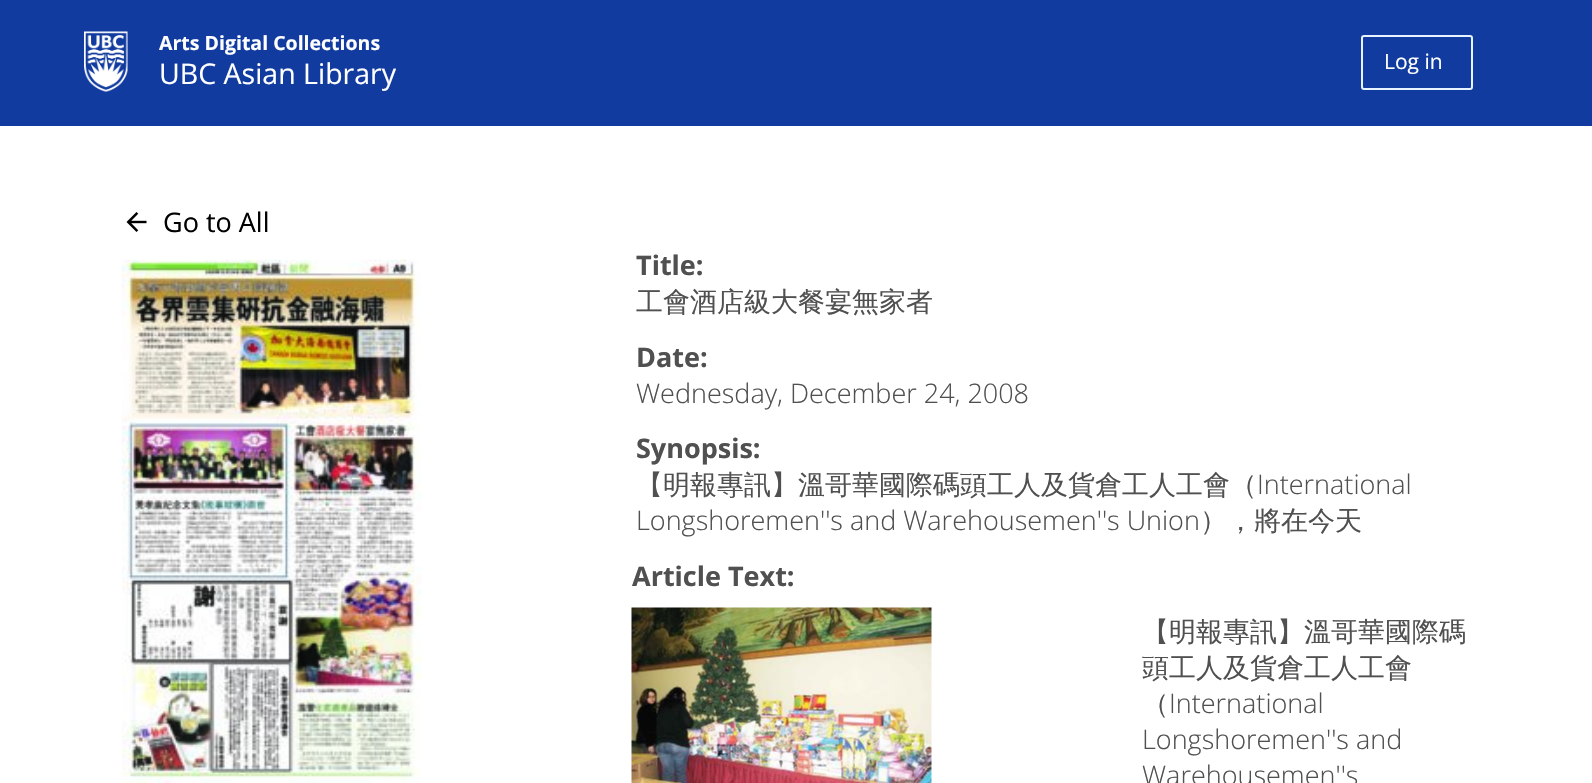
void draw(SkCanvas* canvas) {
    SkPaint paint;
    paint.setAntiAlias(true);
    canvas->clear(0xFFFFFFFF);
    paint.setColor(0xFF113B9E);
    canvas->drawRect(SkRect::MakeXYWH(0, 0, 1592, 126), paint);
    canvas->drawImageRect(SkImages::DeferredFromEncodedData(SkData::MakeFromFileName("img1.png")), SkRect::MakeXYWH(84, 31, 44, 61), SkSamplingOptions());
    SkFont font1(fontMgr->matchFamilyStyle("Open Sans", SkFontStyle::Bold()), 19.5f);
    font1.setSubpixel(true);
    paint.setColor(0xFFFFFFFF);
    canvas->drawString("Arts Digital Collections", 159, 50, font1, paint);
    SkFont font2(fontMgr->matchFamilyStyle("Open Sans", SkFontStyle::Normal()), 28.5f);
    font2.setSubpixel(true);
    canvas->drawString("UBC Asian Library", 159, 84, font2, paint);
    paint.setStyle(SkPaint::kStroke_Style);
    paint.setStrokeWidth(2);
    paint.setColor(0xFFE7F3FE);
    canvas->drawRoundRect(SkRect::MakeXYWH(1362, 36, 110, 53), 2, 2, paint);
    SkFont font3(fontMgr->matchFamilyStyle("Open Sans", SkFontStyle::Normal()), 21);
    font3.setSubpixel(true);
    paint.setStyle(SkPaint::kFill_Style);
    paint.setColor(0xFFFFFFFF);
    canvas->drawString("Log in", 1384, 69, font3, paint);
    canvas->drawImageRect(SkImages::DeferredFromEncodedData(SkData::MakeFromFileName("img2.png")), SkRect::MakeXYWH(126, 212, 21, 20), SkSamplingOptions());
    SkFont font4(fontMgr->matchFamilyStyle("Open Sans", SkFontStyle::Normal()), 27);
    font4.setSubpixel(true);
    paint.setColor(0xFF000000);
    canvas->drawString("Go to All", 163, 232, font4, paint);
    canvas->drawImageRect(SkImages::DeferredFromEncodedData(SkData::MakeFromFileName("img3.png")), SkRect::MakeXYWH(121, 259, 301, 524), SkSamplingOptions());
    SkFont font5(fontMgr->matchFamilyStyle("Open Sans", SkFontStyle::Bold()), 27);
    font5.setSubpixel(true);
    paint.setColor(0xFF505050);
    canvas->drawString("Title:", 636, 275, font5, paint);
    SkFont font6(fontMgr->matchFamilyStyle("WenQuanYi Zen Hei", SkFontStyle(500, SkFontStyle::kNormal_Width, SkFontStyle::kUpright_Slant)), 27);
    font6.setSubpixel(true);
    canvas->drawString("工會酒店級大餐宴無家者", 636, 311, font6, paint);
    canvas->drawString("Date:", 636, 367, font5, paint);
    SkFont font7(fontMgr->matchFamilyStyle("Open Sans", SkFontStyle(300, SkFontStyle::kNormal_Width, SkFontStyle::kUpright_Slant)), 27);
    font7.setSubpixel(true);
    canvas->drawString("Wednesday, December 24, 2008", 636, 403, font7, paint);
    canvas->drawString("Synopsis:", 636, 458, font5, paint);
    canvas->drawString("【明報專訊】溫哥華國際碼頭工人及貨倉工人工會（", 636, 494, font6, paint);
    canvas->drawString("International", 1257, 494, font7, paint);
    canvas->drawString("Longshoremen''s and Warehousemen''s Union", 636, 530, font7, paint);
    canvas->drawString("），將在今天", 1200, 530, font6, paint);
    canvas->drawString("Article Text:", 632, 586, font5, paint);
    canvas->drawImageRect(SkImages::DeferredFromEncodedData(SkData::MakeFromFileName("img4.png")), SkRect::MakeXYWH(631, 607, 301, 176), SkSamplingOptions());
    canvas->drawString("【明報專訊】溫哥華國際碼", 1142, 641, font6, paint);
    canvas->drawString("頭工人及貨倉工人工會", 1142, 677, font6, paint);
    canvas->drawString("（", 1142, 713, font6, paint);
    canvas->drawString("International", 1169, 713, font7, paint);
    canvas->drawString("Longshoremen''s and", 1142, 749, font7, paint);
    canvas->drawString("Warehousemen''s", 1142, 785, font7, paint);
}
